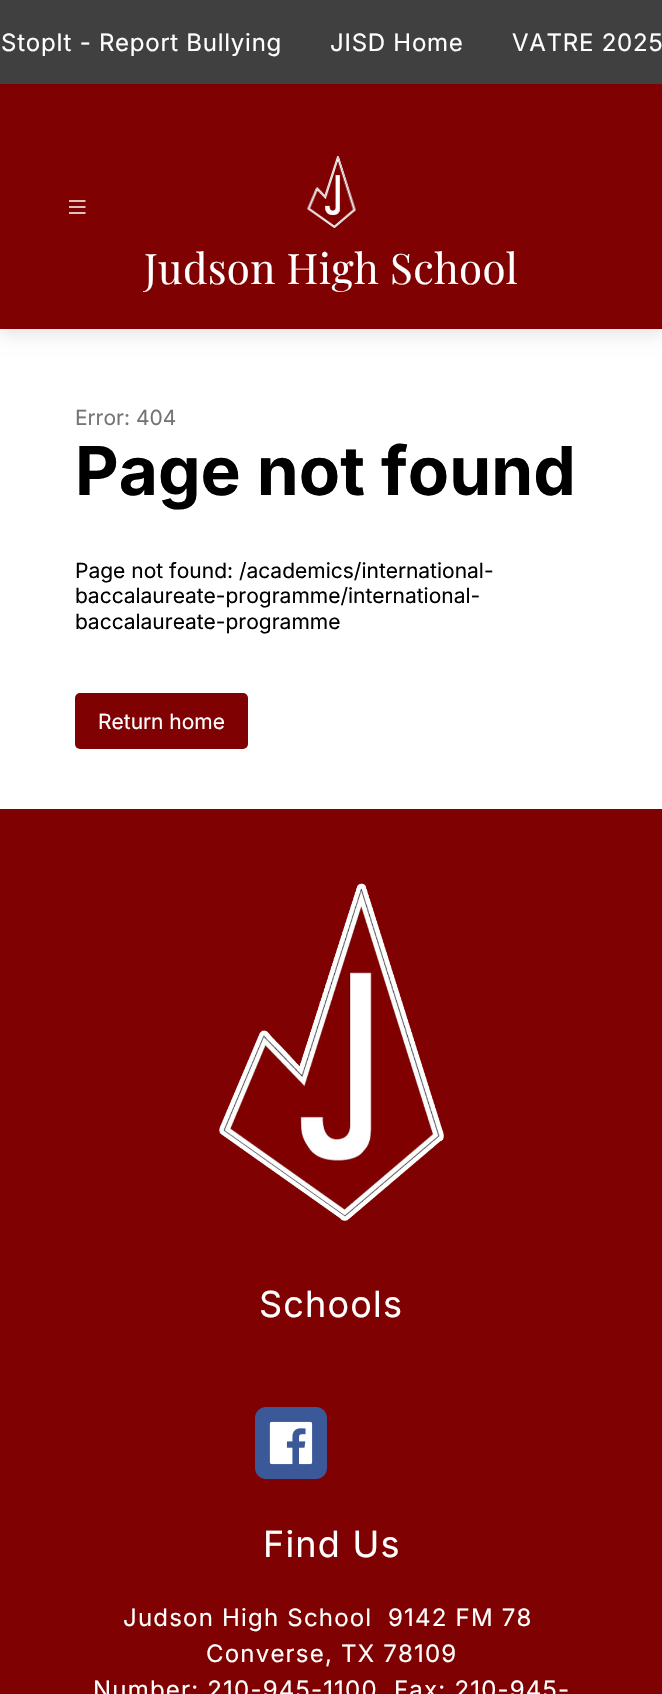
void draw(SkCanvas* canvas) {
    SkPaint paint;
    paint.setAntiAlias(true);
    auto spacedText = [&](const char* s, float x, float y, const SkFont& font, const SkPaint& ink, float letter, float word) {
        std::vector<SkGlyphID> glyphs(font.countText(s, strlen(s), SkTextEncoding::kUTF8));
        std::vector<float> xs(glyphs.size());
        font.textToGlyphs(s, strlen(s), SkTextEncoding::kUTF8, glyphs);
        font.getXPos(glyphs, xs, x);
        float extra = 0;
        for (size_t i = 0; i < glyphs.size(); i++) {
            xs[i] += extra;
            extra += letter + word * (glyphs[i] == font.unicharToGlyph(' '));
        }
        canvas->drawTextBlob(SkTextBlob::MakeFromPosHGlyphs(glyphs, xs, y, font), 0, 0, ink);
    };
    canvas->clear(0xFFFFFFFF);
    paint.setColor(0x1A000000);
    paint.setMaskFilter(SkMaskFilter::MakeBlur(kNormal_SkBlurStyle, 7.5f));
    canvas->drawRect(SkRect::MakeXYWH(0, 6, 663, 329), paint);
    paint.setMaskFilter(nullptr);
    paint.setColor(0xFF800101);
    canvas->drawRect(SkRect::MakeXYWH(0, 84, 662, 245), paint);
    paint.setColor(0xFF404040);
    canvas->drawRect(SkRect::MakeXYWH(0, 0, 662, 84), paint);
    SkFont font1(fontMgr->matchFamilyStyle("Inter", SkFontStyle::Normal()), 24);
    font1.setSubpixel(true);
    paint.setColor(0xFFFFFFFF);
    spacedText("StopIt - Report Bullying", 1, 51, font1, paint, 0.75f, 0);
    spacedText("JISD Home", 330, 51, font1, paint, 0.75f, 0);
    spacedText("VATRE 2025", 512, 51, font1, paint, 0.75f, 0);
    canvas->drawImageRect(SkImages::DeferredFromEncodedData(SkData::MakeFromFileName("img1.png")), SkRect::MakeXYWH(69, 200, 17, 14), SkSamplingOptions());
    canvas->drawImageRect(SkImages::DeferredFromEncodedData(SkData::MakeFromFileName("img2.png")), SkRect::MakeXYWH(307, 156, 49, 72), SkSamplingOptions());
    SkFont font2(fontMgr->matchFamilyStyle("Playfair Display", SkFontStyle::Normal()), 42);
    font2.setSubpixel(true);
    spacedText("Judson High School", 144, 284, font2, paint, 0.4f, 0);
    SkFont font3(fontMgr->matchFamilyStyle("Inter", SkFontStyle::Normal()), 21);
    font3.setSubpixel(true);
    paint.setColor(0xFF747474);
    canvas->drawString("Error: 404", 75, 425, font3, paint);
    SkFont font4(fontMgr->matchFamilyStyle("Inter", SkFontStyle::Bold()), 67.5f);
    font4.setSubpixel(true);
    paint.setColor(0xFF000000);
    canvas->drawString("Page not found", 75, 495, font4, paint);
    canvas->drawString("Page not found: /academics/international-", 75, 578, font3, paint);
    canvas->drawString("baccalaureate-programme/international-", 75, 603, font3, paint);
    canvas->drawString("baccalaureate-programme", 75, 629, font3, paint);
    paint.setColor(0xFF800101);
    canvas->drawRoundRect(SkRect::MakeXYWH(75, 693, 173, 56), 5, 5, paint);
    paint.setColor(0xFFFFFFFF);
    canvas->drawString("Return home", 98, 729, font3, paint);
    paint.setColor(0xFF800101);
    canvas->drawRect(SkRect::MakeXYWH(0, 809, 662, 885), paint);
    canvas->drawImageRect(SkImages::DeferredFromEncodedData(SkData::MakeFromFileName("img3.png")), SkRect::MakeXYWH(219, 883, 225, 338), SkSamplingOptions());
    SkFont font5(fontMgr->matchFamilyStyle("Inter", SkFontStyle::Normal()), 36);
    font5.setSubpixel(true);
    paint.setColor(0xFFFFFFFF);
    spacedText("Schools", 259, 1317, font5, paint, 1.2f, 0);
    canvas->drawImageRect(SkImages::DeferredFromEncodedData(SkData::MakeFromFileName("img4.png")), SkRect::MakeXYWH(255, 1407, 72, 72), SkSamplingOptions());
    spacedText("Find Us", 263, 1557, font5, paint, 1.2f, 0);
    spacedText("Judson High School", 123, 1626, font1, paint, 1.2f, 0);
    spacedText("9142 FM 78", 388, 1626, font1, paint, 1.2f, 0);
    spacedText("Converse, TX 78109", 206, 1662, font1, paint, 1.2f, 0);
    spacedText("Number: 210-945-1100", 93, 1698, font1, paint, 1.2f, 0);
    spacedText("Fax: 210-945-", 394, 1698, font1, paint, 1.2f, 0);
}
